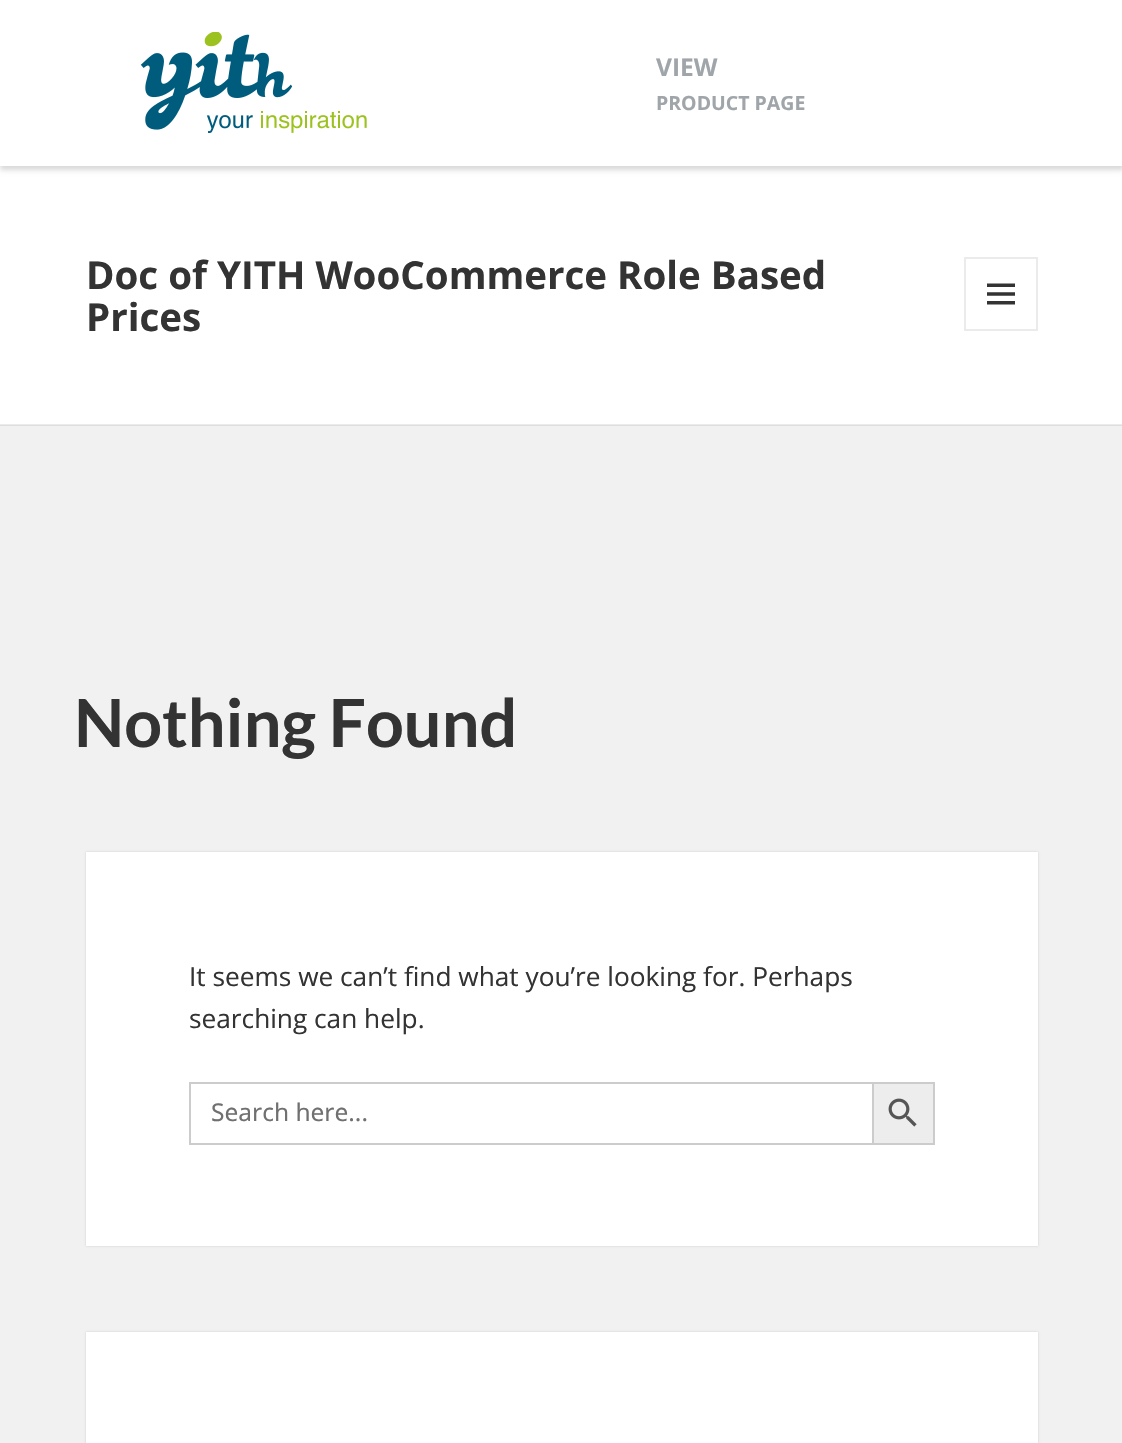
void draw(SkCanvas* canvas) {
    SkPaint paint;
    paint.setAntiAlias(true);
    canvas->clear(0xFFF1F1F1);
    paint.setColor(0xFFDEDEDE);
    canvas->drawRect(SkRect::MakeXYWH(0, 425, 1122, 1), paint);
    paint.setColor(0xFFFFFFFF);
    canvas->drawRect(SkRect::MakeXYWH(0, 166, 1122, 258), paint);
    paint.setColor(0x26000000);
    paint.setMaskFilter(SkMaskFilter::MakeBlur(kNormal_SkBlurStyle, 2.5f));
    canvas->drawRect(SkRect::MakeXYWH(0, 4, 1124, 166), paint);
    paint.setMaskFilter(nullptr);
    paint.setColor(0xFFFFFFFF);
    canvas->drawRect(SkRect::MakeXYWH(0, 0, 1122, 166), paint);
    canvas->drawImageRect(SkImages::DeferredFromEncodedData(SkData::MakeFromFileName("img1.png")), SkRect::MakeXYWH(140, 32, 227, 101), SkSamplingOptions());
    SkFont font1(fontMgr->matchFamilyStyle("Open Sans", SkFontStyle::Bold()), 24.5f);
    font1.setSubpixel(true);
    paint.setColor(0xFFA0A5AA);
    canvas->drawString("VIEW", 656, 76, font1, paint);
    SkFont font2(fontMgr->matchFamilyStyle("Open Sans", SkFontStyle::Bold()), 19.5f);
    font2.setSubpixel(true);
    canvas->drawString("PRODUCT PAGE", 656, 110, font2, paint);
    paint.setColor(0xFFEBEBEB);
    canvas->drawRect(SkRect::MakeXYWH(0, 424, 1122, 1), paint);
    SkFont font3(fontMgr->matchFamilyStyle("Open Sans", SkFontStyle::Bold()), 38.5f);
    font3.setSubpixel(true);
    paint.setColor(0xFF333333);
    canvas->drawString("Doc of YITH WooCommerce Role Based", 86, 289, font3, paint);
    canvas->drawString("Prices", 86, 331, font3, paint);
    paint.setStyle(SkPaint::kStroke_Style);
    paint.setStrokeWidth(2);
    paint.setColor(0xFFEBEBEB);
    canvas->drawRect(SkRect::MakeXYWH(965, 258, 72, 72), paint);
    canvas->drawImageRect(SkImages::DeferredFromEncodedData(SkData::MakeFromFileName("img2.png")), SkRect::MakeXYWH(987, 283, 28, 22), SkSamplingOptions());
    SkFont font4(fontMgr->matchFamilyStyle("Lato", SkFontStyle::Bold()), 66.5f);
    font4.setSubpixel(true);
    paint.setStyle(SkPaint::kFill_Style);
    paint.setColor(0xFF333333);
    canvas->drawString("Nothing Found", 74, 747, font4, paint);
    paint.setColor(0x26000000);
    paint.setMaskFilter(SkMaskFilter::MakeBlur(kNormal_SkBlurStyle, 1));
    canvas->drawRect(SkRect::MakeXYWH(86, 852, 952, 394), paint);
    paint.setMaskFilter(nullptr);
    paint.setColor(0xFFFFFFFF);
    canvas->drawRect(SkRect::MakeXYWH(86, 852, 952, 394), paint);
    SkFont font5(fontMgr->matchFamilyStyle("Open Sans", SkFontStyle::Normal()), 26.25f);
    font5.setSubpixel(true);
    paint.setColor(0xFF333333);
    canvas->drawString("It seems we can’t find what you’re looking for. Perhaps", 189, 986, font5, paint);
    canvas->drawString("searching can help.", 189, 1028, font5, paint);
    paint.setColor(0xFFCCCCCC);
    canvas->drawRect(SkRect::MakeXYWH(189, 1082, 683, 2), paint);
    canvas->drawRect(SkRect::MakeXYWH(189, 1143, 683, 2), paint);
    canvas->drawRect(SkRect::MakeXYWH(189, 1082, 2, 63), paint);
    SkFont font6(fontMgr->matchFamilyStyle("Noto Sans", SkFontStyle::Normal()), 24.5f);
    font6.setSubpixel(true);
    paint.setColor(0xFF707070);
    canvas->drawString("Search here...", 211, 1121, font6, paint);
    paint.setColor(0xFFEDEDED);
    canvas->drawRect(SkRect::MakeXYWH(873, 1083, 61, 61), paint);
    paint.setStyle(SkPaint::kStroke_Style);
    paint.setColor(0xFFCCCCCC);
    canvas->drawRect(SkRect::MakeXYWH(873, 1083, 61, 61), paint);
    canvas->drawImageRect(SkImages::DeferredFromEncodedData(SkData::MakeFromFileName("img3.png")), SkRect::MakeXYWH(888, 1098, 29, 29), SkSamplingOptions());
    paint.setStyle(SkPaint::kFill_Style);
    paint.setColor(0x26000000);
    paint.setMaskFilter(SkMaskFilter::MakeBlur(kNormal_SkBlurStyle, 1));
    canvas->drawRect(SkRect::MakeXYWH(86, 1332, 952, 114), paint);
    paint.setMaskFilter(nullptr);
    paint.setColor(0xFFFFFFFF);
    canvas->drawRect(SkRect::MakeXYWH(86, 1332, 952, 111), paint);
}
